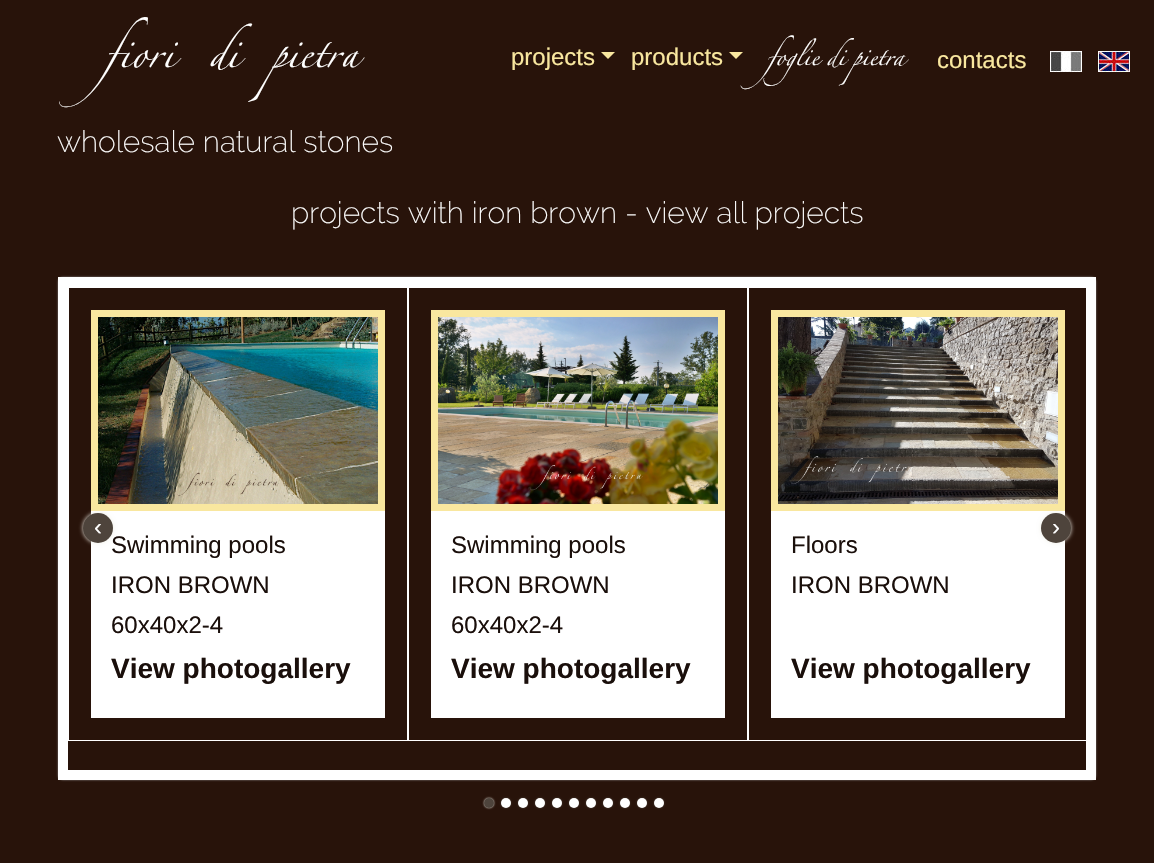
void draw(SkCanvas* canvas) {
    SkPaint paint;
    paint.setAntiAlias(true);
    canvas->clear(0xFF28130A);
    SkFont font1(fontMgr->matchFamilyStyle("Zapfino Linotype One", SkFontStyle::Normal()), 67);
    font1.setSubpixel(true);
    paint.setColor(0xFFFFFFFF);
    canvas->drawString("fiori di pietra", 106, 67, font1, paint);
    SkFont font2(fontMgr->matchFamilyStyle("Liberation Sans", SkFontStyle::Normal()), 24);
    font2.setSubpixel(true);
    paint.setColor(0xFFF9E79F);
    canvas->drawString("projects", 511, 65, font2, paint);
    canvas->drawPath(SkPathBuilder().moveTo(601, 52).lineTo(615, 52).lineTo(608, 59).close().detach(), paint);
    canvas->drawString("products", 631, 65, font2, paint);
    canvas->drawPath(SkPathBuilder().moveTo(729, 52).lineTo(743, 52).lineTo(736, 59).close().detach(), paint);
    SkFont font3(fontMgr->matchFamilyStyle("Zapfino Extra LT", SkFontStyle::Normal()), 40);
    font3.setSubpixel(true);
    paint.setColor(0xFFFFFFFF);
    canvas->drawString("foglie di pietra", 767, 65, font3, paint);
    paint.setColor(0xFFF9E79F);
    canvas->drawString("contacts", 937, 68, font2, paint);
    canvas->drawImageRect(SkImages::DeferredFromEncodedData(SkData::MakeFromFileName("img1.png")), SkRect::MakeXYWH(1050, 51, 32, 21), SkSamplingOptions());
    canvas->drawImageRect(SkImages::DeferredFromEncodedData(SkData::MakeFromFileName("img2.png")), SkRect::MakeXYWH(1098, 51, 32, 21), SkSamplingOptions());
    SkFont font4(fontMgr->matchFamilyStyle("Raleway", SkFontStyle(200, SkFontStyle::kNormal_Width, SkFontStyle::kUpright_Slant)), 30);
    font4.setSubpixel(true);
    paint.setColor(0xFFFFFFFF);
    canvas->drawString("wholesale natural stones", 57, 152, font4, paint);
    canvas->drawString("projects with iron brown - view all projects", 291, 223, font4, paint);
    canvas->save();
    canvas->clipPath(SkPathBuilder(SkPathFillType::kEvenOdd).moveTo(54, 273).lineTo(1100, 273).lineTo(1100, 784).lineTo(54, 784).close().moveTo(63, 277).lineTo(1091, 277).cubicTo(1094, 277, 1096, 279, 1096, 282).lineTo(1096, 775).cubicTo(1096, 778, 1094, 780, 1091, 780).lineTo(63, 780).cubicTo(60, 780, 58, 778, 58, 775).lineTo(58, 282).cubicTo(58, 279, 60, 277, 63, 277).close().detach(), true);
    paint.setColor(0xFF999999);
    paint.setMaskFilter(SkMaskFilter::MakeBlur(kNormal_SkBlurStyle, 1));
    canvas->drawRoundRect(SkRect::MakeXYWH(58, 277, 1038, 503), 5, 5, paint);
    paint.setMaskFilter(nullptr);
    canvas->restore();
    paint.setStyle(SkPaint::kStroke_Style);
    paint.setStrokeWidth(10);
    paint.setColor(0xFFFFFFFF);
    canvas->drawRect(SkRect::MakeXYWH(63, 282, 1028, 493), paint);
    paint.setStrokeWidth(1);
    canvas->drawRect(SkRect::MakeXYWH(68.5f, 287.5f, 339, 453), paint);
    paint.setStrokeWidth(7);
    paint.setColor(0xFFF9E79F);
    canvas->drawPath(SkPathBuilder().moveTo(94.5f, 313.5f).lineTo(381.5f, 313.5f).lineTo(381.5f, 507.5f).lineTo(94.5f, 507.5f).close().detach(), paint);
    paint.setStyle(SkPaint::kFill_Style);
    paint.setColor(0xFFFFFFFF);
    canvas->drawRect(SkRect::MakeXYWH(91, 511, 294, 207), paint);
    paint.setColor(0xFFF0EFE7);
    paint.setMaskFilter(SkMaskFilter::MakeBlur(kNormal_SkBlurStyle, 2));
    canvas->drawRoundRect(SkRect::MakeXYWH(83, 513, 30, 30), 15, 15, paint);
    paint.setMaskFilter(nullptr);
    paint.setColor(0xFF1A0F0B);
    canvas->drawString("Swimming pools", 111, 553, font2, paint);
    paint.setColor(0xFF4E443C);
    canvas->drawCircle(98, 528, 15, paint);
    paint.setColor(0xFFFFFFFF);
    canvas->drawString("‹", 94, 535, font2, paint);
    canvas->save();
    canvas->clipRect(SkRect::MakeXYWH(68, 287, 1018, 483));
    paint.setStyle(SkPaint::kStroke_Style);
    paint.setStrokeWidth(1);
    canvas->drawRect(SkRect::MakeXYWH(748.5f, 287.5f, 339, 453), paint);
    canvas->restore();
    paint.setStrokeWidth(7);
    paint.setColor(0xFFF9E79F);
    canvas->drawPath(SkPathBuilder().moveTo(774.5f, 313.5f).lineTo(1061.5f, 313.5f).lineTo(1061.5f, 507.5f).lineTo(774.5f, 507.5f).close().detach(), paint);
    paint.setStyle(SkPaint::kFill_Style);
    paint.setColor(0xFFFFFFFF);
    canvas->drawRect(SkRect::MakeXYWH(771, 511, 294, 207), paint);
    paint.setColor(0xFFF0EFE7);
    paint.setMaskFilter(SkMaskFilter::MakeBlur(kNormal_SkBlurStyle, 2));
    canvas->drawRoundRect(SkRect::MakeXYWH(1041, 513, 30, 30), 15, 15, paint);
    paint.setMaskFilter(nullptr);
    paint.setColor(0xFF4E443C);
    canvas->drawCircle(1056, 528, 15, paint);
    paint.setColor(0xFFFFFFFF);
    canvas->drawString("›", 1052, 535, font2, paint);
    canvas->drawImageRect(SkImages::DeferredFromEncodedData(SkData::MakeFromFileName("img3.png")), SkRect::MakeXYWH(98, 317, 280, 187), SkSamplingOptions());
    paint.setColor(0xFF1A0F0B);
    canvas->drawString("IRON BROWN", 111, 593, font2, paint);
    canvas->drawString("60x40x2-4", 111, 633, font2, paint);
    SkFont font5(fontMgr->matchFamilyStyle("Liberation Sans", SkFontStyle::Bold()), 28);
    font5.setSubpixel(true);
    canvas->drawString("View photogallery", 111, 678, font5, paint);
    paint.setStyle(SkPaint::kStroke_Style);
    paint.setStrokeWidth(1);
    paint.setColor(0xFFFFFFFF);
    canvas->drawRect(SkRect::MakeXYWH(408.5f, 287.5f, 339, 453), paint);
    paint.setStrokeWidth(7);
    paint.setColor(0xFFF9E79F);
    canvas->drawPath(SkPathBuilder().moveTo(434.5f, 313.5f).lineTo(721.5f, 313.5f).lineTo(721.5f, 507.5f).lineTo(434.5f, 507.5f).close().detach(), paint);
    canvas->drawImageRect(SkImages::DeferredFromEncodedData(SkData::MakeFromFileName("img4.png")), SkRect::MakeXYWH(438, 317, 280, 187), SkSamplingOptions());
    paint.setStyle(SkPaint::kFill_Style);
    paint.setColor(0xFFFFFFFF);
    canvas->drawRect(SkRect::MakeXYWH(431, 511, 294, 207), paint);
    paint.setColor(0xFF1A0F0B);
    canvas->drawString("Swimming pools", 451, 553, font2, paint);
    canvas->drawString("IRON BROWN", 451, 593, font2, paint);
    canvas->drawString("60x40x2-4", 451, 633, font2, paint);
    canvas->drawString("View photogallery", 451, 678, font5, paint);
    canvas->drawImageRect(SkImages::DeferredFromEncodedData(SkData::MakeFromFileName("img5.png")), SkRect::MakeXYWH(778, 317, 280, 187), SkSamplingOptions());
    canvas->drawString("Floors", 791, 553, font2, paint);
    canvas->drawString("IRON BROWN", 791, 593, font2, paint);
    canvas->drawString("View photogallery", 791, 678, font5, paint);
    paint.setColor(0xFFF0EFE7);
    paint.setMaskFilter(SkMaskFilter::MakeBlur(kNormal_SkBlurStyle, 1));
    canvas->drawRoundRect(SkRect::MakeXYWH(484, 798, 10, 10), 5, 5, paint);
    paint.setMaskFilter(nullptr);
    paint.setColor(0xFF4E443C);
    canvas->drawCircle(489, 803, 5, paint);
    paint.setMaskFilter(SkMaskFilter::MakeBlur(kNormal_SkBlurStyle, 1));
    canvas->drawRoundRect(SkRect::MakeXYWH(501, 798, 10, 10), 5, 5, paint);
    paint.setMaskFilter(nullptr);
    paint.setColor(0xFFFFFFFF);
    canvas->drawCircle(506, 803, 5, paint);
    paint.setColor(0xFF4E443C);
    paint.setMaskFilter(SkMaskFilter::MakeBlur(kNormal_SkBlurStyle, 1));
    canvas->drawRoundRect(SkRect::MakeXYWH(518, 798, 10, 10), 5, 5, paint);
    paint.setMaskFilter(nullptr);
    paint.setColor(0xFFFFFFFF);
    canvas->drawCircle(523, 803, 5, paint);
    paint.setColor(0xFF4E443C);
    paint.setMaskFilter(SkMaskFilter::MakeBlur(kNormal_SkBlurStyle, 1));
    canvas->drawRoundRect(SkRect::MakeXYWH(535, 798, 10, 10), 5, 5, paint);
    paint.setMaskFilter(nullptr);
    paint.setColor(0xFFFFFFFF);
    canvas->drawCircle(540, 803, 5, paint);
    paint.setColor(0xFF4E443C);
    paint.setMaskFilter(SkMaskFilter::MakeBlur(kNormal_SkBlurStyle, 1));
    canvas->drawRoundRect(SkRect::MakeXYWH(552, 798, 10, 10), 5, 5, paint);
    paint.setMaskFilter(nullptr);
    paint.setColor(0xFFFFFFFF);
    canvas->drawCircle(557, 803, 5, paint);
    paint.setColor(0xFF4E443C);
    paint.setMaskFilter(SkMaskFilter::MakeBlur(kNormal_SkBlurStyle, 1));
    canvas->drawRoundRect(SkRect::MakeXYWH(569, 798, 10, 10), 5, 5, paint);
    paint.setMaskFilter(nullptr);
    paint.setColor(0xFFFFFFFF);
    canvas->drawCircle(574, 803, 5, paint);
    paint.setColor(0xFF4E443C);
    paint.setMaskFilter(SkMaskFilter::MakeBlur(kNormal_SkBlurStyle, 1));
    canvas->drawRoundRect(SkRect::MakeXYWH(586, 798, 10, 10), 5, 5, paint);
    paint.setMaskFilter(nullptr);
    paint.setColor(0xFFFFFFFF);
    canvas->drawCircle(591, 803, 5, paint);
    paint.setColor(0xFF4E443C);
    paint.setMaskFilter(SkMaskFilter::MakeBlur(kNormal_SkBlurStyle, 1));
    canvas->drawRoundRect(SkRect::MakeXYWH(603, 798, 10, 10), 5, 5, paint);
    paint.setMaskFilter(nullptr);
    paint.setColor(0xFFFFFFFF);
    canvas->drawCircle(608, 803, 5, paint);
    paint.setColor(0xFF4E443C);
    paint.setMaskFilter(SkMaskFilter::MakeBlur(kNormal_SkBlurStyle, 1));
    canvas->drawRoundRect(SkRect::MakeXYWH(620, 798, 10, 10), 5, 5, paint);
    paint.setMaskFilter(nullptr);
    paint.setColor(0xFFFFFFFF);
    canvas->drawCircle(625, 803, 5, paint);
    paint.setColor(0xFF4E443C);
    paint.setMaskFilter(SkMaskFilter::MakeBlur(kNormal_SkBlurStyle, 1));
    canvas->drawRoundRect(SkRect::MakeXYWH(637, 798, 10, 10), 5, 5, paint);
    paint.setMaskFilter(nullptr);
    paint.setColor(0xFFFFFFFF);
    canvas->drawCircle(642, 803, 5, paint);
    paint.setColor(0xFF4E443C);
    paint.setMaskFilter(SkMaskFilter::MakeBlur(kNormal_SkBlurStyle, 1));
    canvas->drawRoundRect(SkRect::MakeXYWH(654, 798, 10, 10), 5, 5, paint);
    paint.setMaskFilter(nullptr);
    paint.setColor(0xFFFFFFFF);
    canvas->drawCircle(659, 803, 5, paint);
}
